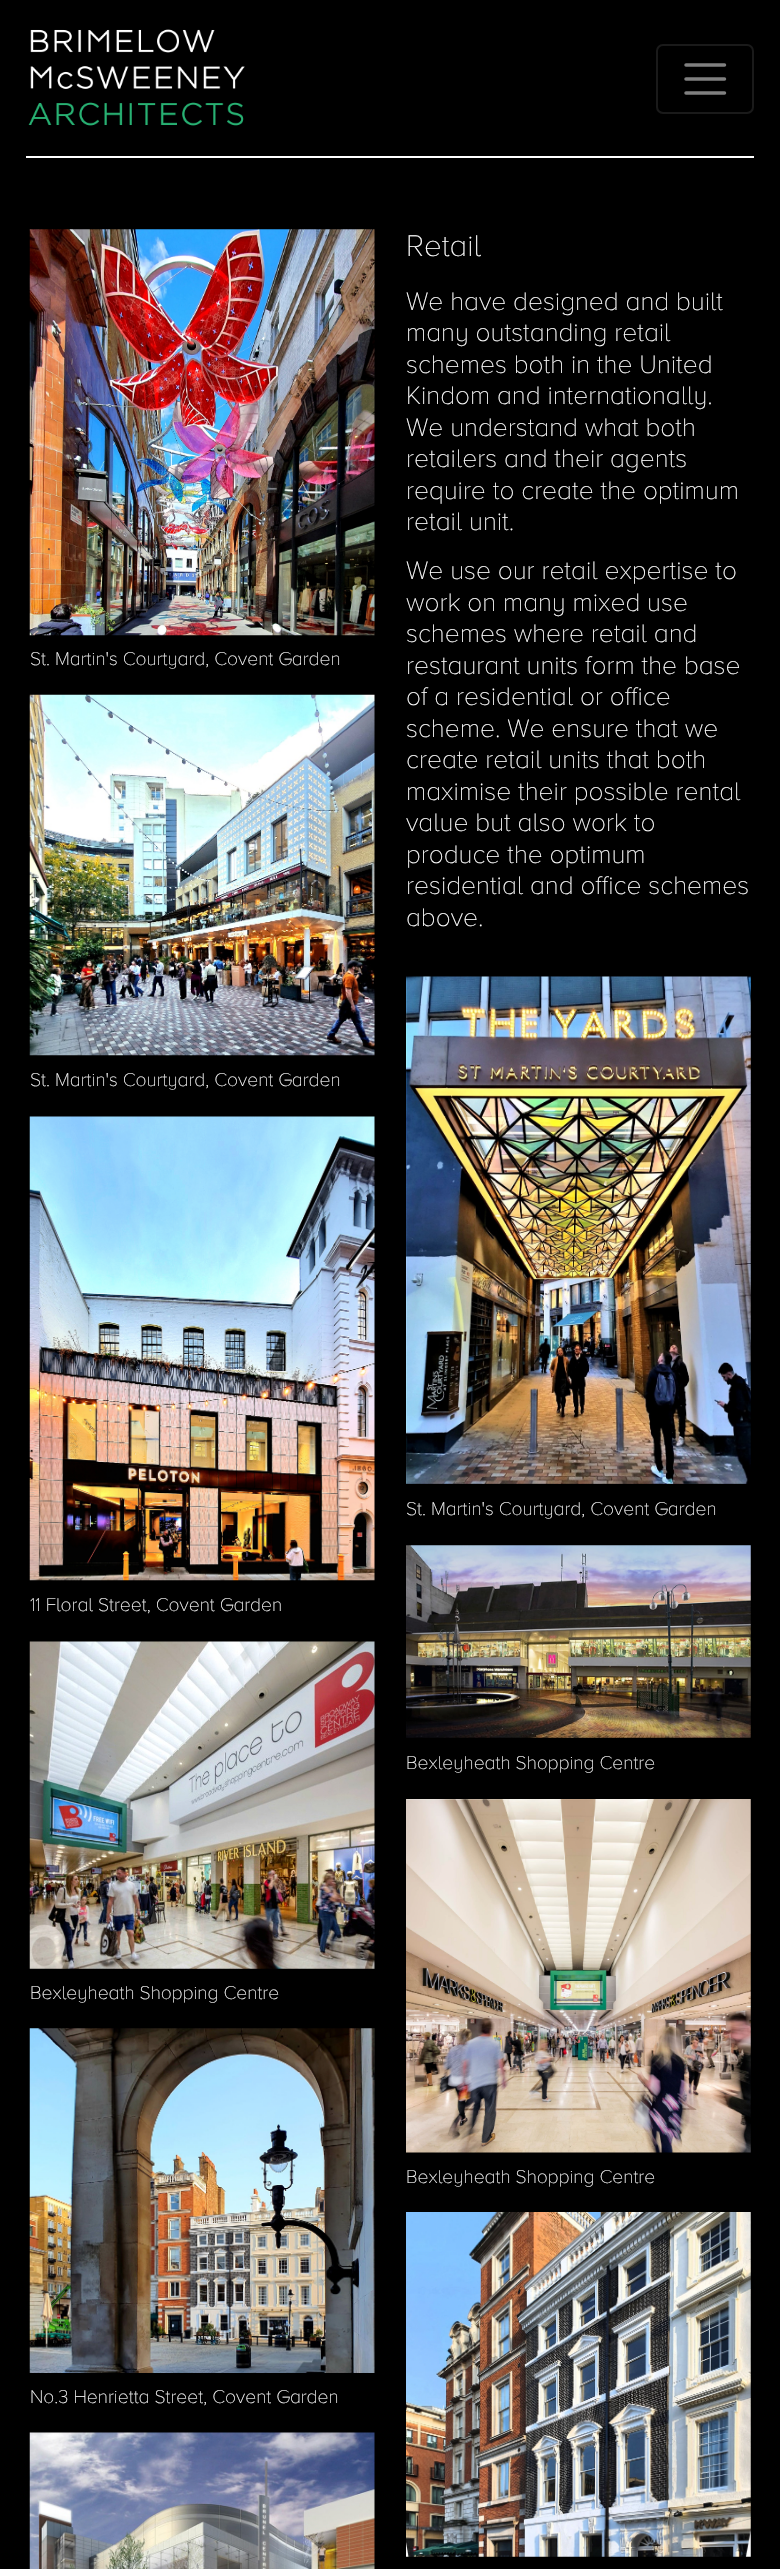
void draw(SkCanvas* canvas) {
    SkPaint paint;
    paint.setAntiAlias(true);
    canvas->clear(0xFF000000);
    canvas->drawImageRect(SkImages::DeferredFromEncodedData(SkData::MakeFromFileName("img1.png")), SkRect::MakeXYWH(28, 29, 217, 97), SkSamplingOptions());
    paint.setStyle(SkPaint::kStroke_Style);
    paint.setStrokeWidth(2);
    paint.setColor(0xFF1A1A1A);
    canvas->drawRoundRect(SkRect::MakeXYWH(657, 45, 96, 68), 6, 6, paint);
    paint.setStrokeWidth(3.5f);
    paint.setStrokeCap(SkPaint::kRound_Cap);
    paint.setColor(0xFF808080);
    canvas->drawPath(SkPathBuilder().moveTo(686, 65).lineTo(724.5f, 65).moveTo(686, 79).lineTo(724.5f, 79).moveTo(686, 93).lineTo(724.5f, 93).detach(), paint);
    paint.setStyle(SkPaint::kFill_Style);
    paint.setColor(0xFFFFFFFF);
    canvas->drawRect(SkRect::MakeXYWH(26, 156, 728, 2), paint);
    canvas->drawImageRect(SkImages::DeferredFromEncodedData(SkData::MakeFromFileName("img2.png")), SkRect::MakeXYWH(29, 229, 346, 407), SkSamplingOptions());
    SkFont font1(fontMgr->matchFamilyStyle("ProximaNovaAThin", SkFontStyle(100, SkFontStyle::kNormal_Width, SkFontStyle::kUpright_Slant)), 19.25f);
    font1.setSubpixel(true);
    canvas->drawString("St. Martin's Courtyard, Covent Garden", 30, 665, font1, paint);
    SkFont font2(fontMgr->matchFamilyStyle("ProximaNovaAThin", SkFontStyle(100, SkFontStyle::kNormal_Width, SkFontStyle::kUpright_Slant)), 31);
    font2.setSubpixel(true);
    canvas->drawString("Retail", 406, 256, font2, paint);
    SkFont font3(fontMgr->matchFamilyStyle("ProximaNovaAThin", SkFontStyle(100, SkFontStyle::kNormal_Width, SkFontStyle::kUpright_Slant)), 26.25f);
    font3.setSubpixel(true);
    canvas->drawString("We have designed and built", 406, 310, font3, paint);
    canvas->drawString("many outstanding retail", 406, 341, font3, paint);
    canvas->drawString("schemes both in the United", 406, 373, font3, paint);
    canvas->drawString("Kindom and internationally.", 406, 404, font3, paint);
    canvas->drawString("We understand what both", 406, 436, font3, paint);
    canvas->drawString("retailers and their agents", 406, 467, font3, paint);
    canvas->drawString("require to create the optimum", 406, 499, font3, paint);
    canvas->drawString("retail unit.", 406, 530, font3, paint);
    canvas->drawString("We use our retail expertise to", 406, 579, font3, paint);
    canvas->drawString("work on many mixed use", 406, 611, font3, paint);
    canvas->drawString("schemes where retail and", 406, 642, font3, paint);
    canvas->drawString("restaurant units form the base", 406, 674, font3, paint);
    canvas->drawString("of a residential or office", 406, 705, font3, paint);
    canvas->drawString("scheme. We ensure that we", 406, 737, font3, paint);
    canvas->drawString("create retail units that both", 406, 768, font3, paint);
    canvas->drawString("maximise their possible rental", 406, 800, font3, paint);
    canvas->drawString("value but also work to", 406, 831, font3, paint);
    canvas->drawString("produce the optimum", 406, 863, font3, paint);
    canvas->drawString("residential and office schemes", 406, 894, font3, paint);
    canvas->drawString("above.", 406, 926, font3, paint);
    canvas->drawImageRect(SkImages::DeferredFromEncodedData(SkData::MakeFromFileName("img3.png")), SkRect::MakeXYWH(29, 694, 346, 362), SkSamplingOptions());
    canvas->drawString("St. Martin's Courtyard, Covent Garden", 30, 1086, font1, paint);
    canvas->drawImageRect(SkImages::DeferredFromEncodedData(SkData::MakeFromFileName("img4.png")), SkRect::MakeXYWH(406, 976, 345, 508), SkSamplingOptions());
    canvas->drawString("St. Martin's Courtyard, Covent Garden", 406, 1515, font1, paint);
    canvas->drawImageRect(SkImages::DeferredFromEncodedData(SkData::MakeFromFileName("img5.png")), SkRect::MakeXYWH(29, 1116, 346, 465), SkSamplingOptions());
    canvas->drawString("11 Floral Street, Covent Garden", 30, 1611, font1, paint);
    canvas->drawImageRect(SkImages::DeferredFromEncodedData(SkData::MakeFromFileName("img6.png")), SkRect::MakeXYWH(406, 1545, 345, 193), SkSamplingOptions());
    canvas->drawString("Bexleyheath Shopping Centre", 406, 1769, font1, paint);
    canvas->drawImageRect(SkImages::DeferredFromEncodedData(SkData::MakeFromFileName("img7.png")), SkRect::MakeXYWH(29, 1641, 346, 328), SkSamplingOptions());
    canvas->drawString("Bexleyheath Shopping Centre", 30, 1999, font1, paint);
    canvas->drawImageRect(SkImages::DeferredFromEncodedData(SkData::MakeFromFileName("img8.png")), SkRect::MakeXYWH(406, 1799, 345, 354), SkSamplingOptions());
    canvas->drawString("Bexleyheath Shopping Centre", 406, 2183, font1, paint);
    canvas->drawImageRect(SkImages::DeferredFromEncodedData(SkData::MakeFromFileName("img9.png")), SkRect::MakeXYWH(29, 2028, 346, 345), SkSamplingOptions());
    canvas->drawString("No.3 Henrietta Street, Covent Garden", 30, 2403, font1, paint);
    canvas->drawImageRect(SkImages::DeferredFromEncodedData(SkData::MakeFromFileName("img10.png")), SkRect::MakeXYWH(406, 2212, 345, 345), SkSamplingOptions());
    canvas->drawImageRect(SkImages::DeferredFromEncodedData(SkData::MakeFromFileName("img11.png")), SkRect::MakeXYWH(29, 2432, 346, 137), SkSamplingOptions());
}
